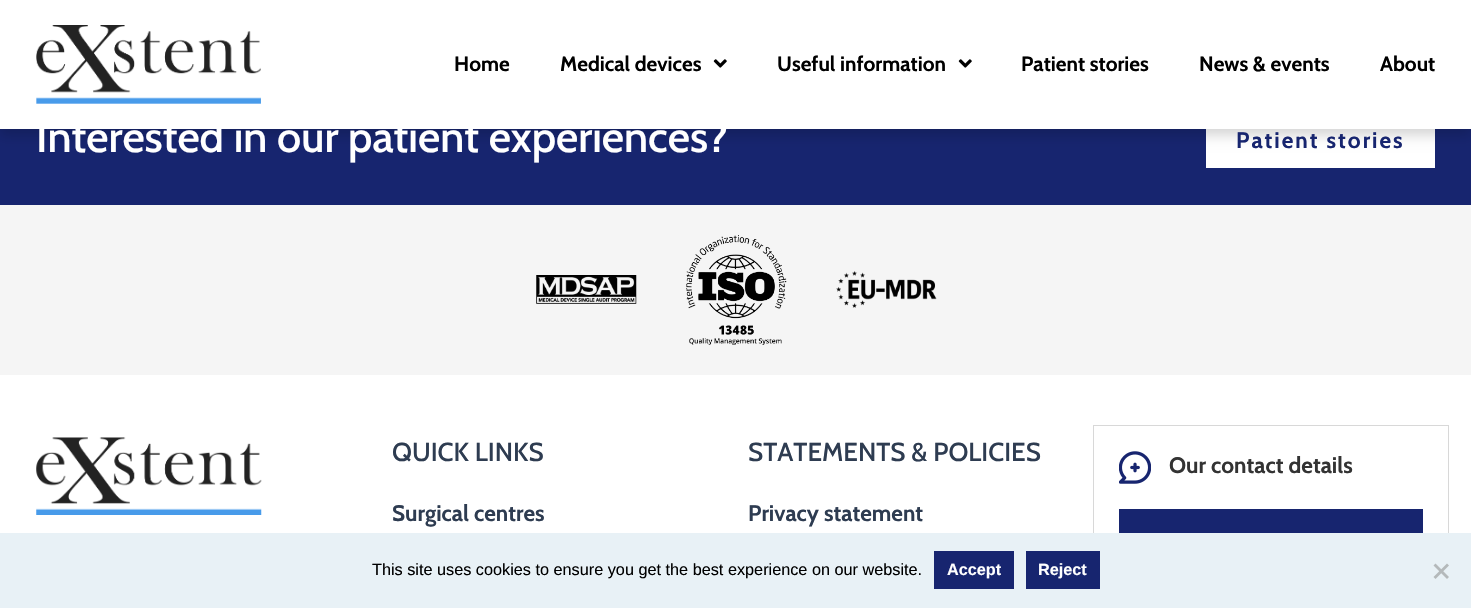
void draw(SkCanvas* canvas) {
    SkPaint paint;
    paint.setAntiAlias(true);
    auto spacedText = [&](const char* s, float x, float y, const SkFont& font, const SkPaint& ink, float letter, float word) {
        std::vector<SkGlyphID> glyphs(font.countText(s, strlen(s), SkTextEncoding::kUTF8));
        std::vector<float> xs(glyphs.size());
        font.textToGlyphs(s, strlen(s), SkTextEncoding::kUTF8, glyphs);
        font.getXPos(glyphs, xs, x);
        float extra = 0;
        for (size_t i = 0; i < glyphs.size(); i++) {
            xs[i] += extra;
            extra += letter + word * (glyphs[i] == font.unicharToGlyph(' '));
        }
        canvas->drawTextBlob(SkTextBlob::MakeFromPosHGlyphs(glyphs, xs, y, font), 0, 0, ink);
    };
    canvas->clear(0xFFFFFFFF);
    paint.setColor(0xFF17256F);
    canvas->drawRect(SkRect::MakeXYWH(0, 129, 1471, 76), paint);
    paint.setColor(0xFFFFFFFF);
    canvas->drawRect(SkRect::MakeXYWH(1206, 129, 229, 39), paint);
    paint.setColor(0x2B000000);
    paint.setMaskFilter(SkMaskFilter::MakeBlur(kNormal_SkBlurStyle, 6));
    canvas->drawRect(SkRect::MakeXYWH(0, 6, 1471, 129), paint);
    paint.setMaskFilter(nullptr);
    paint.setColor(0xFFFFFFFF);
    canvas->drawRect(SkRect::MakeXYWH(0, 0, 1471, 129), paint);
    canvas->drawImageRect(SkImages::DeferredFromEncodedData(SkData::MakeFromFileName("img1.png")), SkRect::MakeXYWH(36, 25, 225, 79), SkSamplingOptions());
    SkFont font1(fontMgr->matchFamilyStyle("Cabin", SkFontStyle::Bold()), 20.75f);
    font1.setSubpixel(true);
    paint.setColor(0xFF000000);
    canvas->drawString("Home", 454, 71, font1, paint);
    canvas->drawString("Medical devices", 560, 71, font1, paint);
    canvas->drawImageRect(SkImages::DeferredFromEncodedData(SkData::MakeFromFileName("img2.png")), SkRect::MakeXYWH(713, 59, 14, 9), SkSamplingOptions());
    canvas->drawString("Useful information", 777, 71, font1, paint);
    canvas->drawImageRect(SkImages::DeferredFromEncodedData(SkData::MakeFromFileName("img2.png")), SkRect::MakeXYWH(958, 59, 14, 9), SkSamplingOptions());
    canvas->drawString("Patient stories", 1021, 71, font1, paint);
    canvas->drawString("News & events", 1199, 71, font1, paint);
    canvas->drawString("About", 1380, 71, font1, paint);
    SkFont font2(fontMgr->matchFamilyStyle("Cabin", SkFontStyle(500, SkFontStyle::kNormal_Width, SkFontStyle::kUpright_Slant)), 43.25f);
    font2.setSubpixel(true);
    paint.setColor(0xFFFFFFFF);
    canvas->drawString("Interested in our patient experiences?", 36, 152, font2, paint);
    SkFont font3(fontMgr->matchFamilyStyle("Cabin", SkFontStyle::Bold()), 22.5f);
    font3.setSubpixel(true);
    paint.setColor(0xFF17256F);
    spacedText("Patient stories", 1236, 148, font3, paint, 2, 0);
    paint.setColor(0xFFF5F5F5);
    canvas->drawRect(SkRect::MakeXYWH(0, 205, 1471, 170), paint);
    canvas->drawImageRect(SkImages::DeferredFromEncodedData(SkData::MakeFromFileName("img3.png")), SkRect::MakeXYWH(536, 275, 101, 29), SkSamplingOptions());
    canvas->drawImageRect(SkImages::DeferredFromEncodedData(SkData::MakeFromFileName("img4.png")), SkRect::MakeXYWH(686, 235, 101, 110), SkSamplingOptions());
    canvas->drawImageRect(SkImages::DeferredFromEncodedData(SkData::MakeFromFileName("img5.png")), SkRect::MakeXYWH(836, 271, 101, 37), SkSamplingOptions());
    canvas->drawImageRect(SkImages::DeferredFromEncodedData(SkData::MakeFromFileName("img6.png")), SkRect::MakeXYWH(36, 437, 226, 78), SkSamplingOptions());
    SkFont font4(fontMgr->matchFamilyStyle("Cabin", SkFontStyle(500, SkFontStyle::kNormal_Width, SkFontStyle::kUpright_Slant)), 26);
    font4.setSubpixel(true);
    paint.setColor(0xFF2E3C51);
    canvas->drawString("QUICK LINKS", 392, 461, font4, paint);
    canvas->drawString("Surgical centres", 392, 521, font3, paint);
    canvas->drawString("STATEMENTS & POLICIES", 748, 461, font4, paint);
    canvas->drawString("Privacy statement", 748, 521, font3, paint);
    paint.setColor(0xFFD8D8D8);
    canvas->drawRect(SkRect::MakeXYWH(1093, 425, 356, 1), paint);
    canvas->drawRect(SkRect::MakeXYWH(1448, 425, 1, 108), paint);
    canvas->drawRect(SkRect::MakeXYWH(1093, 425, 1, 108), paint);
    canvas->drawImageRect(SkImages::DeferredFromEncodedData(SkData::MakeFromFileName("img7.png")), SkRect::MakeXYWH(1119, 451, 32, 33), SkSamplingOptions());
    paint.setColor(0xFF333333);
    canvas->drawString("Our contact details", 1169, 473, font3, paint);
    paint.setColor(0xFF17256F);
    canvas->drawRect(SkRect::MakeXYWH(1119, 509, 304, 24), paint);
    paint.setColor(0xFFE8F1F6);
    canvas->drawRect(SkRect::MakeXYWH(0, 533, 1471, 75), paint);
    SkFont font5(fontMgr->matchFamilyStyle("Liberation Sans", SkFontStyle::Normal()), 16.25f);
    font5.setSubpixel(true);
    paint.setColor(0xFF000000);
    canvas->drawString("This site uses cookies to ensure you get the best experience on our website.", 372, 575, font5, paint);
    paint.setColor(0xFF17256F);
    canvas->drawRect(SkRect::MakeXYWH(934, 551, 80, 38), paint);
    SkFont font6(fontMgr->matchFamilyStyle("Liberation Sans", SkFontStyle::Bold()), 16.25f);
    font6.setSubpixel(true);
    paint.setColor(0xFFFFFFFF);
    canvas->drawString("Accept", 947, 575, font6, paint);
    paint.setColor(0xFF17256F);
    canvas->drawRect(SkRect::MakeXYWH(1026, 551, 74, 38), paint);
    paint.setColor(0xFFFFFFFF);
    canvas->drawString("Reject", 1038, 575, font6, paint);
    paint.setColor(0xFFB4B9BB);
    canvas->drawPath(SkPathBuilder().moveTo(1447, 563.5f).lineTo(1449, 565.5f).lineTo(1435.5f, 579).lineTo(1433.5f, 577).close().detach(), paint);
    canvas->drawPath(SkPathBuilder().moveTo(1433.5f, 565.5f).lineTo(1435.5f, 563.5f).lineTo(1449, 577).lineTo(1447, 579).close().detach(), paint);
}
